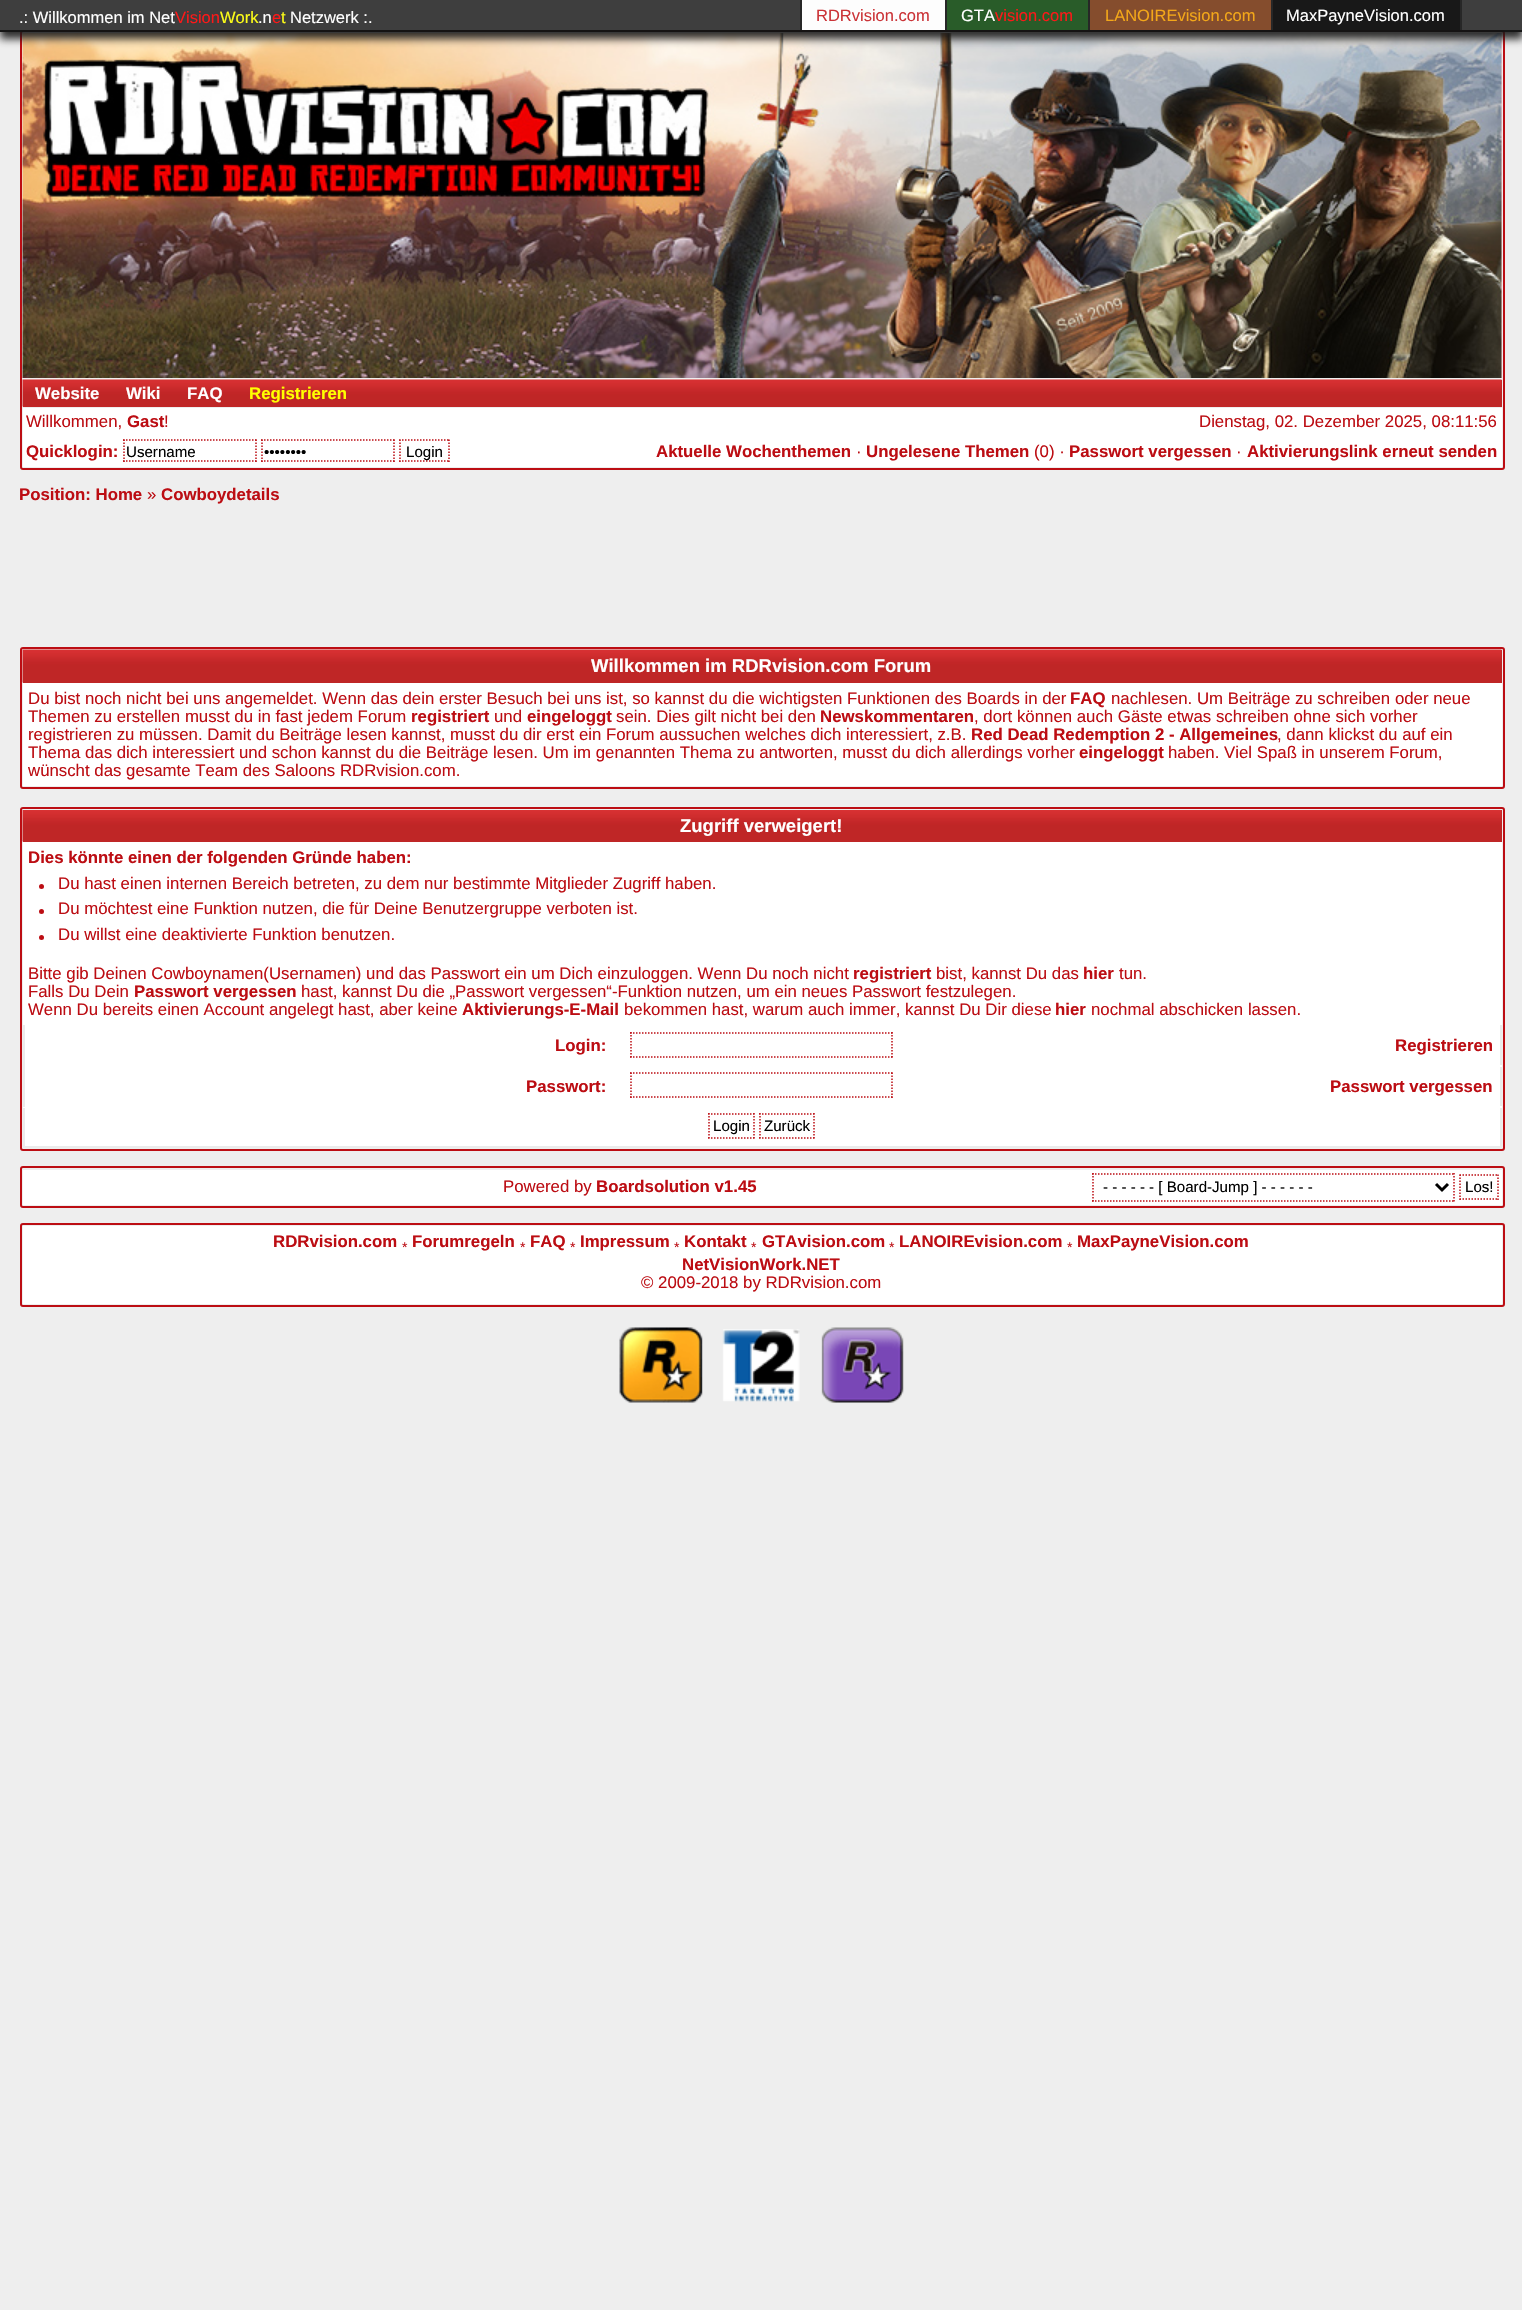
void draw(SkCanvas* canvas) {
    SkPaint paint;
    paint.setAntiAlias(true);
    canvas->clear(0xFFEEEEEE);
    paint.setStyle(SkPaint::kStroke_Style);
    paint.setStrokeWidth(2);
    paint.setColor(0xFFBC0D13);
    canvas->drawRoundRect(SkRect::MakeXYWH(21, 31, 1483, 438), 2, 2, paint);
    paint.setStyle(SkPaint::kFill_Style);
    paint.setColor(0xFFFFCCCC);
    canvas->drawRect(SkRect::MakeXYWH(1501, 33, 1, 345), paint);
    canvas->drawImageRect(SkImages::DeferredFromEncodedData(SkData::MakeFromFileName("img1.png")), SkRect::MakeXYWH(22, 33, 1480, 345), SkSamplingOptions());
    canvas->save();
    canvas->clipPath(SkPathBuilder(SkPathFillType::kEvenOdd).moveTo(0, 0).lineTo(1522, 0).lineTo(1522, 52).lineTo(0, 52).close().moveTo(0, 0).lineTo(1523, 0).lineTo(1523, 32).lineTo(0, 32).close().detach(), true);
    paint.setColor(0xE6181818);
    paint.setMaskFilter(SkMaskFilter::MakeBlur(kNormal_SkBlurStyle, 4));
    canvas->drawRect(SkRect::MakeXYWH(0, 8, 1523, 31), paint);
    paint.setMaskFilter(nullptr);
    canvas->restore();
    paint.setColor(0xE62A2A2A);
    canvas->drawRect(SkRect::MakeXYWH(0, 0, 1522, 32), paint);
    paint.setColor(0xE6111111);
    canvas->drawRect(SkRect::MakeXYWH(0, 30, 1522, 2), paint);
    SkFont font1(fontMgr->matchFamilyStyle("Liberation Sans", SkFontStyle::Normal()), 16.5f);
    font1.setSubpixel(true);
    paint.setColor(0xFFFFFFFF);
    canvas->drawString(".: Willkommen im Net", 19, 23, font1, paint);
    paint.setColor(0xFFFD1818);
    canvas->drawString("Vision", 175, 23, font1, paint);
    paint.setColor(0xFFFDFD18);
    canvas->drawString("Work", 220, 23, font1, paint);
    paint.setColor(0xFFFFFFFF);
    canvas->drawString(".n", 258, 23, font1, paint);
    paint.setColor(0xFFFD1818);
    canvas->drawString("e", 272, 23, font1, paint);
    paint.setColor(0xFFFDFD18);
    canvas->drawString("t", 281, 23, font1, paint);
    paint.setColor(0xFFFFFFFF);
    canvas->drawString("Netzwerk :.", 290, 23, font1, paint);
    paint.setColor(0xFFFDFDFD);
    canvas->drawRect(SkRect::MakeXYWH(802, 0, 143, 30), paint);
    paint.setColor(0xFF272727);
    canvas->drawRect(SkRect::MakeXYWH(800, 0, 2, 30), paint);
    paint.setColor(0xFFCB3337);
    canvas->drawString("RDRvision.com", 816, 21, font1, paint);
    paint.setColor(0xFF295C29);
    canvas->drawRect(SkRect::MakeXYWH(947, 0, 141, 30), paint);
    paint.setColor(0xFF272727);
    canvas->drawRect(SkRect::MakeXYWH(945, 0, 2, 30), paint);
    paint.setColor(0xFFFFFFFF);
    canvas->drawString("GTA", 961, 21, font1, paint);
    paint.setColor(0xFFFD1818);
    canvas->drawString("vision.com", 995, 21, font1, paint);
    paint.setColor(0xFF854D2D);
    canvas->drawRect(SkRect::MakeXYWH(1090, 0, 181, 30), paint);
    paint.setColor(0xFF272727);
    canvas->drawRect(SkRect::MakeXYWH(1088, 0, 2, 30), paint);
    paint.setColor(0xFFF3A719);
    canvas->drawString("LANOIREvision.com", 1105, 21, font1, paint);
    paint.setColor(0xFF181818);
    canvas->drawRect(SkRect::MakeXYWH(1273, 0, 187, 30), paint);
    paint.setColor(0xFF272727);
    canvas->drawRect(SkRect::MakeXYWH(1271, 0, 2, 30), paint);
    paint.setColor(0xFFFFFFFF);
    canvas->drawString("MaxPayneVision.com", 1286, 21, font1, paint);
    paint.setColor(0xFF272727);
    canvas->drawRect(SkRect::MakeXYWH(1460, 0, 2, 30), paint);
    paint.setColor(0xFFBF2626);
    canvas->drawRect(SkRect::MakeXYWH(23, 380, 1479, 27), paint);
    canvas->drawImageRect(SkImages::DeferredFromEncodedData(SkData::MakeFromFileName("img2.png")), SkRect::MakeXYWH(22, 379, 1480, 28), SkSamplingOptions());
    SkFont font2(fontMgr->matchFamilyStyle("Liberation Sans", SkFontStyle::Bold()), 16.8f);
    font2.setSubpixel(true);
    paint.setColor(0xFFFFFFFF);
    canvas->drawString("Website", 35, 399, font2, paint);
    canvas->drawString("Wiki", 126, 399, font2, paint);
    canvas->drawString("FAQ", 187, 399, font2, paint);
    paint.setColor(0xFFFFFF00);
    canvas->drawString("Registrieren", 249, 399, font2, paint);
    paint.setColor(0xFFFFFFFF);
    canvas->drawRect(SkRect::MakeXYWH(23, 408, 1479, 59), paint);
    SkFont font3(fontMgr->matchFamilyStyle("Liberation Sans", SkFontStyle::Normal()), 16.8f);
    font3.setSubpixel(true);
    paint.setColor(0xFFBC0D13);
    canvas->drawString("Willkommen,", 26, 427, font3, paint);
    canvas->drawString("Gast", 127, 427, font2, paint);
    canvas->drawString("!", 164, 427, font3, paint);
    canvas->drawString("Dienstag, 02. Dezember 2025, 08:11:56", 1199, 427, font3, paint);
    canvas->drawString("Quicklogin:", 26, 457, font2, paint);
    paint.setStyle(SkPaint::kStroke_Style);
    paint.setStrokeWidth(1.5f);
    paint.setPathEffect(SkDashPathEffect::Make({{1.5f, 1.5f}}, 0));
    canvas->drawPath(SkPathBuilder().moveTo(123, 440).lineTo(256.5f, 440).detach(), paint);
    paint.setPathEffect(nullptr);
    paint.setPathEffect(SkDashPathEffect::Make({{1.5f, 1.5f}}, 0));
    canvas->drawPath(SkPathBuilder().moveTo(256, 439.5f).lineTo(256, 462).detach(), paint);
    paint.setPathEffect(nullptr);
    paint.setPathEffect(SkDashPathEffect::Make({{1.5f, 1.5f}}, 0));
    canvas->drawPath(SkPathBuilder().moveTo(123, 461).lineTo(256.5f, 461).detach(), paint);
    paint.setPathEffect(nullptr);
    paint.setPathEffect(SkDashPathEffect::Make({{1.5f, 1.5f}}, 0));
    canvas->drawPath(SkPathBuilder().moveTo(124, 439.5f).lineTo(124, 462).detach(), paint);
    paint.setPathEffect(nullptr);
    SkFont font4(fontMgr->matchFamilyStyle("Liberation Sans", SkFontStyle::Normal()), 15.1f);
    font4.setSubpixel(true);
    paint.setStyle(SkPaint::kFill_Style);
    paint.setColor(0xFF000000);
    canvas->drawString("Username", 126, 457, font4, paint);
    paint.setStyle(SkPaint::kStroke_Style);
    paint.setColor(0xFFBC0D13);
    paint.setPathEffect(SkDashPathEffect::Make({{1.5f, 1.5f}}, 0));
    canvas->drawPath(SkPathBuilder().moveTo(261, 440).lineTo(394.5f, 440).detach(), paint);
    paint.setPathEffect(nullptr);
    paint.setPathEffect(SkDashPathEffect::Make({{1.5f, 1.5f}}, 0));
    canvas->drawPath(SkPathBuilder().moveTo(394, 439.5f).lineTo(394, 462).detach(), paint);
    paint.setPathEffect(nullptr);
    paint.setPathEffect(SkDashPathEffect::Make({{1.5f, 1.5f}}, 0));
    canvas->drawPath(SkPathBuilder().moveTo(261, 461).lineTo(394.5f, 461).detach(), paint);
    paint.setPathEffect(nullptr);
    paint.setPathEffect(SkDashPathEffect::Make({{1.5f, 1.5f}}, 0));
    canvas->drawPath(SkPathBuilder().moveTo(262, 439.5f).lineTo(262, 462).detach(), paint);
    paint.setPathEffect(nullptr);
    paint.setStyle(SkPaint::kFill_Style);
    paint.setColor(0xFF000000);
    canvas->drawString("••••••••", 264, 457, font4, paint);
    paint.setStyle(SkPaint::kStroke_Style);
    paint.setColor(0xFFBC0D13);
    paint.setPathEffect(SkDashPathEffect::Make({{1.5f, 1.5f}}, 0));
    canvas->drawPath(SkPathBuilder().moveTo(399, 440).lineTo(450, 440).moveTo(449, 439.5f).lineTo(449, 462).moveTo(399, 461).lineTo(450, 461).moveTo(400, 439.5f).lineTo(400, 462).detach(), paint);
    paint.setPathEffect(nullptr);
    paint.setStyle(SkPaint::kFill_Style);
    paint.setColor(0xFF000000);
    canvas->drawString("Login", 406, 457, font4, paint);
    paint.setColor(0xFFBC0D13);
    canvas->drawString("Aktuelle Wochenthemen", 656, 457, font2, paint);
    canvas->drawString("·", 856, 457, font3, paint);
    canvas->drawString("Ungelesene Themen", 866, 457, font2, paint);
    canvas->drawString("(0) ·", 1034, 457, font3, paint);
    canvas->drawString("Passwort vergessen", 1069, 457, font2, paint);
    canvas->drawString("·", 1236, 457, font3, paint);
    canvas->drawString("Aktivierungslink erneut senden", 1247, 457, font2, paint);
    canvas->drawString("Position: Home", 19, 500, font2, paint);
    canvas->drawString("»", 147, 500, font3, paint);
    canvas->drawString("Cowboydetails", 161, 500, font2, paint);
    paint.setStyle(SkPaint::kStroke_Style);
    paint.setStrokeWidth(2);
    canvas->drawRoundRect(SkRect::MakeXYWH(21, 648, 1483, 140), 2, 2, paint);
    paint.setStyle(SkPaint::kFill_Style);
    paint.setColor(0xFFBF2626);
    canvas->drawRect(SkRect::MakeXYWH(23, 650, 1479, 33), paint);
    canvas->drawImageRect(SkImages::DeferredFromEncodedData(SkData::MakeFromFileName("img3.png")), SkRect::MakeXYWH(22, 649, 1480, 34), SkSamplingOptions());
    SkFont font5(fontMgr->matchFamilyStyle("Liberation Sans", SkFontStyle::Bold()), 18.5f);
    font5.setSubpixel(true);
    paint.setColor(0xFFFFFFFF);
    canvas->drawString("Willkommen im RDRvision.com Forum", 591, 672, font5, paint);
    canvas->drawRect(SkRect::MakeXYWH(23, 683, 1479, 103), paint);
    paint.setColor(0xFFBC0D13);
    canvas->drawString("Du bist noch nicht bei uns angemeldet. Wenn das dein erster Besuch bei uns ist, so kannst du die wichtigsten Funktionen des Boards in der", 28, 704, font3, paint);
    canvas->drawString("FAQ", 1070, 704, font2, paint);
    canvas->drawString("nachlesen. Um Beiträge zu schreiben oder neue", 1111, 704, font3, paint);
    canvas->drawString("Themen zu erstellen musst du in fast jedem Forum", 28, 722, font3, paint);
    canvas->drawString("registriert", 411, 722, font2, paint);
    canvas->drawString("und", 494, 722, font3, paint);
    canvas->drawString("eingeloggt", 527, 722, font2, paint);
    canvas->drawString("sein. Dies gilt nicht bei den", 616, 722, font3, paint);
    canvas->drawString("Newskommentaren", 820, 722, font2, paint);
    canvas->drawString(", dort können auch Gäste etwas schreiben ohne sich vorher", 974, 722, font3, paint);
    canvas->drawString("registrieren zu müssen. Damit du Beiträge lesen kannst, musst du dir erst ein Forum aussuchen welches dich interessiert, z.B.", 28, 740, font3, paint);
    canvas->drawString("Red Dead Redemption 2 - Allgemeines", 971, 740, font2, paint);
    canvas->drawString(", dann klickst du auf ein", 1277, 740, font3, paint);
    canvas->drawString("Thema das dich interessiert und schon kannst du die Beiträge lesen. Um im genannten Thema zu antworten, musst du dich allerdings vorher", 28, 758, font3, paint);
    canvas->drawString("eingeloggt", 1079, 758, font2, paint);
    canvas->drawString("haben. Viel Spaß in unserem Forum,", 1168, 758, font3, paint);
    canvas->drawString("wünscht das gesamte Team des Saloons RDRvision.com.", 28, 776, font3, paint);
    paint.setStyle(SkPaint::kStroke_Style);
    canvas->drawRoundRect(SkRect::MakeXYWH(21, 808, 1483, 342), 2, 2, paint);
    paint.setStyle(SkPaint::kFill_Style);
    paint.setColor(0xFFBF2626);
    canvas->drawRect(SkRect::MakeXYWH(23, 810, 1479, 32), paint);
    canvas->drawImageRect(SkImages::DeferredFromEncodedData(SkData::MakeFromFileName("img4.png")), SkRect::MakeXYWH(22, 810, 1480, 32), SkSamplingOptions());
    paint.setColor(0xFFFFFFFF);
    canvas->drawString("Zugriff verweigert!", 680, 832, font5, paint);
    canvas->drawRect(SkRect::MakeXYWH(23, 842, 1479, 183), paint);
    paint.setColor(0xFFBC0D13);
    canvas->drawString("Dies könnte einen der folgenden Gründe haben:", 28, 863, font2, paint);
    canvas->drawCircle(41.5f, 886.5f, 2.5f, paint);
    canvas->drawString("Du hast einen internen Bereich betreten, zu dem nur bestimmte Mitglieder Zugriff haben.", 58, 889, font3, paint);
    canvas->drawCircle(41.5f, 911.5f, 2.5f, paint);
    canvas->drawString("Du möchtest eine Funktion nutzen, die für Deine Benutzergruppe verboten ist.", 58, 914, font3, paint);
    canvas->drawCircle(41.5f, 937.5f, 2.5f, paint);
    canvas->drawString("Du willst eine deaktivierte Funktion benutzen.", 58, 940, font3, paint);
    canvas->drawString("Bitte gib Deinen Cowboynamen(Usernamen) und das Passwort ein um Dich einzuloggen. Wenn Du noch nicht", 28, 979, font3, paint);
    canvas->drawString("registriert", 853, 979, font2, paint);
    canvas->drawString("bist, kannst Du das", 936, 979, font3, paint);
    canvas->drawString("hier", 1083, 979, font2, paint);
    canvas->drawString("tun.", 1119, 979, font3, paint);
    canvas->drawString("Falls Du Dein", 28, 997, font3, paint);
    canvas->drawString("Passwort vergessen", 134, 997, font2, paint);
    canvas->drawString("hast, kannst Du die „Passwort vergessen“-Funktion nutzen, um ein neues Passwort festzulegen.", 301, 997, font3, paint);
    canvas->drawString("Wenn Du bereits einen Account angelegt hast, aber keine", 28, 1015, font3, paint);
    canvas->drawString("Aktivierungs-E-Mail", 462, 1015, font2, paint);
    canvas->drawString("bekommen hast, warum auch immer, kannst Du Dir diese", 624, 1015, font3, paint);
    canvas->drawString("hier", 1055, 1015, font2, paint);
    canvas->drawString("nochmal abschicken lassen.", 1091, 1015, font3, paint);
    paint.setColor(0xFFFFFFFF);
    canvas->drawRect(SkRect::MakeXYWH(25, 1025, 884, 40), paint);
    paint.setColor(0xFFEBEBEB);
    canvas->drawRect(SkRect::MakeXYWH(1500, 1065, 2, 83), paint);
    canvas->drawRect(SkRect::MakeXYWH(23, 1146, 1479, 2), paint);
    canvas->drawRect(SkRect::MakeXYWH(23, 1106, 2, 42), paint);
    paint.setColor(0xFFFFFFFF);
    canvas->drawRect(SkRect::MakeXYWH(23, 1106, 592, 2), paint);
    paint.setColor(0xFFEBEBEB);
    canvas->drawRect(SkRect::MakeXYWH(23, 1065, 2, 42), paint);
    paint.setColor(0xFFFFFFFF);
    canvas->drawRect(SkRect::MakeXYWH(614, 1065, 295, 41), paint);
    canvas->drawRect(SkRect::MakeXYWH(23, 1065, 592, 2), paint);
    paint.setColor(0xFFEBEBEB);
    canvas->drawRect(SkRect::MakeXYWH(23, 1025, 2, 42), paint);
    paint.setColor(0xFFBC0D13);
    canvas->drawString("Login:", 555, 1051, font2, paint);
    paint.setStyle(SkPaint::kStroke_Style);
    paint.setStrokeWidth(1.5f);
    paint.setPathEffect(SkDashPathEffect::Make({{1.5f, 1.5f}}, 0));
    canvas->drawPath(SkPathBuilder().moveTo(630, 1033).lineTo(892.5f, 1033).detach(), paint);
    paint.setPathEffect(nullptr);
    paint.setPathEffect(SkDashPathEffect::Make({{1.5f, 1.5f}}, 0));
    canvas->drawPath(SkPathBuilder().moveTo(892, 1032).lineTo(892, 1057.5f).detach(), paint);
    paint.setPathEffect(nullptr);
    paint.setPathEffect(SkDashPathEffect::Make({{1.5f, 1.5f}}, 0));
    canvas->drawPath(SkPathBuilder().moveTo(630, 1057).lineTo(892.5f, 1057).detach(), paint);
    paint.setPathEffect(nullptr);
    paint.setPathEffect(SkDashPathEffect::Make({{1.5f, 1.5f}}, 0));
    canvas->drawPath(SkPathBuilder().moveTo(631, 1032).lineTo(631, 1057.5f).detach(), paint);
    paint.setPathEffect(nullptr);
    paint.setStyle(SkPaint::kFill_Style);
    paint.setColor(0xFFFFFFFF);
    canvas->drawRect(SkRect::MakeXYWH(909, 1027, 591, 38), paint);
    canvas->drawRect(SkRect::MakeXYWH(909, 1025, 593, 2), paint);
    paint.setColor(0xFFEBEBEB);
    canvas->drawRect(SkRect::MakeXYWH(1500, 1025, 2, 42), paint);
    paint.setColor(0xFFFFFFFF);
    canvas->drawRect(SkRect::MakeXYWH(909, 1065, 593, 2), paint);
    paint.setColor(0xFFBC0D13);
    canvas->drawString("Registrieren", 1395, 1051, font2, paint);
    paint.setColor(0xFFFFFFFF);
    canvas->drawRect(SkRect::MakeXYWH(25, 1067, 589, 39), paint);
    paint.setColor(0xFFBC0D13);
    canvas->drawString("Passwort:", 526, 1092, font2, paint);
    paint.setStyle(SkPaint::kStroke_Style);
    paint.setPathEffect(SkDashPathEffect::Make({{1.5f, 1.5f}}, 0));
    canvas->drawPath(SkPathBuilder().moveTo(630, 1073).lineTo(892.5f, 1073).detach(), paint);
    paint.setPathEffect(nullptr);
    paint.setPathEffect(SkDashPathEffect::Make({{1.5f, 1.5f}}, 0));
    canvas->drawPath(SkPathBuilder().moveTo(892, 1072.5f).lineTo(892, 1098).detach(), paint);
    paint.setPathEffect(nullptr);
    paint.setPathEffect(SkDashPathEffect::Make({{1.5f, 1.5f}}, 0));
    canvas->drawPath(SkPathBuilder().moveTo(630, 1097).lineTo(892.5f, 1097).detach(), paint);
    paint.setPathEffect(nullptr);
    paint.setPathEffect(SkDashPathEffect::Make({{1.5f, 1.5f}}, 0));
    canvas->drawPath(SkPathBuilder().moveTo(631, 1072.5f).lineTo(631, 1098).detach(), paint);
    paint.setPathEffect(nullptr);
    paint.setStyle(SkPaint::kFill_Style);
    paint.setColor(0xFFFFFFFF);
    canvas->drawRect(SkRect::MakeXYWH(909, 1067, 591, 39), paint);
    canvas->drawRect(SkRect::MakeXYWH(909, 1106, 593, 2), paint);
    paint.setColor(0xFFBC0D13);
    canvas->drawString("Passwort vergessen", 1330, 1092, font2, paint);
    paint.setColor(0xFFFFFFFF);
    canvas->drawRect(SkRect::MakeXYWH(25, 1108, 1475, 38), paint);
    canvas->drawRect(SkRect::MakeXYWH(615, 1106, 294, 2), paint);
    paint.setStyle(SkPaint::kStroke_Style);
    paint.setColor(0xFFBC0D13);
    paint.setPathEffect(SkDashPathEffect::Make({{1.5f, 1.5f}}, 0));
    canvas->drawPath(SkPathBuilder().moveTo(708, 1114).lineTo(754.5f, 1114).moveTo(754, 1113).lineTo(754, 1138.5f).moveTo(708, 1138).lineTo(754.5f, 1138).moveTo(709, 1113).lineTo(709, 1138.5f).detach(), paint);
    paint.setPathEffect(nullptr);
    paint.setStyle(SkPaint::kFill_Style);
    paint.setColor(0xFF000000);
    canvas->drawString("Login", 713, 1131, font4, paint);
    paint.setStyle(SkPaint::kStroke_Style);
    paint.setColor(0xFFBC0D13);
    paint.setPathEffect(SkDashPathEffect::Make({{1.5f, 1.5f}}, 0));
    canvas->drawPath(SkPathBuilder().moveTo(759, 1114).lineTo(814.5f, 1114).moveTo(814, 1113).lineTo(814, 1138.5f).moveTo(759, 1138).lineTo(814.5f, 1138).moveTo(760, 1113).lineTo(760, 1138.5f).detach(), paint);
    paint.setPathEffect(nullptr);
    paint.setStyle(SkPaint::kFill_Style);
    paint.setColor(0xFF000000);
    canvas->drawString("Zurück", 764, 1131, font4, paint);
    paint.setStyle(SkPaint::kStroke_Style);
    paint.setStrokeWidth(2);
    paint.setColor(0xFFBC0D13);
    canvas->drawRoundRect(SkRect::MakeXYWH(21, 1167, 1483, 40), 2, 2, paint);
    paint.setStyle(SkPaint::kFill_Style);
    paint.setColor(0xFFFFFFFF);
    canvas->drawRect(SkRect::MakeXYWH(23, 1170, 1479, 35), paint);
    paint.setColor(0xFFBC0D13);
    canvas->drawString("Powered by", 503, 1192, font3, paint);
    canvas->drawString("Boardsolution v1.45", 596, 1192, font2, paint);
    paint.setStyle(SkPaint::kStroke_Style);
    paint.setStrokeWidth(1.5f);
    paint.setPathEffect(SkDashPathEffect::Make({{1.5f, 1.5f}}, 0));
    canvas->drawPath(SkPathBuilder().moveTo(1092, 1174).lineTo(1455, 1174).detach(), paint);
    paint.setPathEffect(nullptr);
    paint.setPathEffect(SkDashPathEffect::Make({{1.5f, 1.5f}}, 0));
    canvas->drawPath(SkPathBuilder().moveTo(1454, 1173).lineTo(1454, 1201.5f).detach(), paint);
    paint.setPathEffect(nullptr);
    paint.setPathEffect(SkDashPathEffect::Make({{1.5f, 1.5f}}, 0));
    canvas->drawPath(SkPathBuilder().moveTo(1092, 1201).lineTo(1455, 1201).detach(), paint);
    paint.setPathEffect(nullptr);
    paint.setPathEffect(SkDashPathEffect::Make({{1.5f, 1.5f}}, 0));
    canvas->drawPath(SkPathBuilder().moveTo(1093, 1173).lineTo(1093, 1201.5f).detach(), paint);
    paint.setPathEffect(nullptr);
    paint.setStrokeWidth(3);
    paint.setColor(0xFF000000);
    canvas->drawPath(SkPathBuilder().moveTo(1436, 1184).lineTo(1442, 1190).lineTo(1448, 1184).detach(), paint);
    paint.setStyle(SkPaint::kFill_Style);
    canvas->drawString("- - - - - - [ Board-Jump ] - - - - - -", 1103, 1192, font4, paint);
    paint.setStyle(SkPaint::kStroke_Style);
    paint.setStrokeWidth(1.5f);
    paint.setColor(0xFFBC0D13);
    paint.setPathEffect(SkDashPathEffect::Make({{1.5f, 1.5f}}, 0));
    canvas->drawPath(SkPathBuilder().moveTo(1459.5f, 1175).lineTo(1498.5f, 1175).moveTo(1498, 1174.5f).lineTo(1498, 1200).moveTo(1459.5f, 1199).lineTo(1498.5f, 1199).moveTo(1460, 1174.5f).lineTo(1460, 1200).detach(), paint);
    paint.setPathEffect(nullptr);
    paint.setStyle(SkPaint::kFill_Style);
    paint.setColor(0xFF000000);
    canvas->drawString("Los!", 1465, 1192, font4, paint);
    paint.setStyle(SkPaint::kStroke_Style);
    paint.setStrokeWidth(2);
    paint.setColor(0xFFBC0D13);
    canvas->drawRoundRect(SkRect::MakeXYWH(21, 1224, 1483, 82), 2, 2, paint);
    paint.setStyle(SkPaint::kFill_Style);
    paint.setColor(0xFFFFFFFF);
    canvas->drawRect(SkRect::MakeXYWH(23, 1226, 1479, 78), paint);
    paint.setColor(0xFFBC0D13);
    canvas->drawString("RDRvision.com", 273, 1247, font2, paint);
    SkFont font6(fontMgr->matchFamilyStyle("Liberation Sans", SkFontStyle::Normal()), 14);
    font6.setSubpixel(true);
    canvas->drawString("*", 402, 1252, font6, paint);
    canvas->drawString("Forumregeln", 412, 1247, font2, paint);
    canvas->drawString("*", 520, 1252, font6, paint);
    canvas->drawString("FAQ", 530, 1247, font2, paint);
    canvas->drawString("*", 570, 1252, font6, paint);
    canvas->drawString("Impressum", 580, 1247, font2, paint);
    canvas->drawString("*", 674, 1252, font6, paint);
    canvas->drawString("Kontakt", 684, 1247, font2, paint);
    canvas->drawString("*", 751, 1252, font6, paint);
    canvas->drawString("GTAvision.com", 762, 1247, font2, paint);
    canvas->drawString("*", 889, 1252, font6, paint);
    canvas->drawString("LANOIREvision.com", 899, 1247, font2, paint);
    canvas->drawString("*", 1067, 1252, font6, paint);
    canvas->drawString("MaxPayneVision.com", 1077, 1247, font2, paint);
    canvas->drawString("NetVisionWork.NET", 682, 1270, font2, paint);
    canvas->drawString("© 2009-2018 by RDRvision.com", 641, 1288, font3, paint);
    canvas->drawImageRect(SkImages::DeferredFromEncodedData(SkData::MakeFromFileName("img5.png")), SkRect::MakeXYWH(619, 1327, 84, 76), SkSamplingOptions());
    canvas->drawImageRect(SkImages::DeferredFromEncodedData(SkData::MakeFromFileName("img6.png")), SkRect::MakeXYWH(722, 1329, 78, 73), SkSamplingOptions());
    canvas->drawImageRect(SkImages::DeferredFromEncodedData(SkData::MakeFromFileName("img7.png")), SkRect::MakeXYWH(821, 1327, 83, 76), SkSamplingOptions());
}
